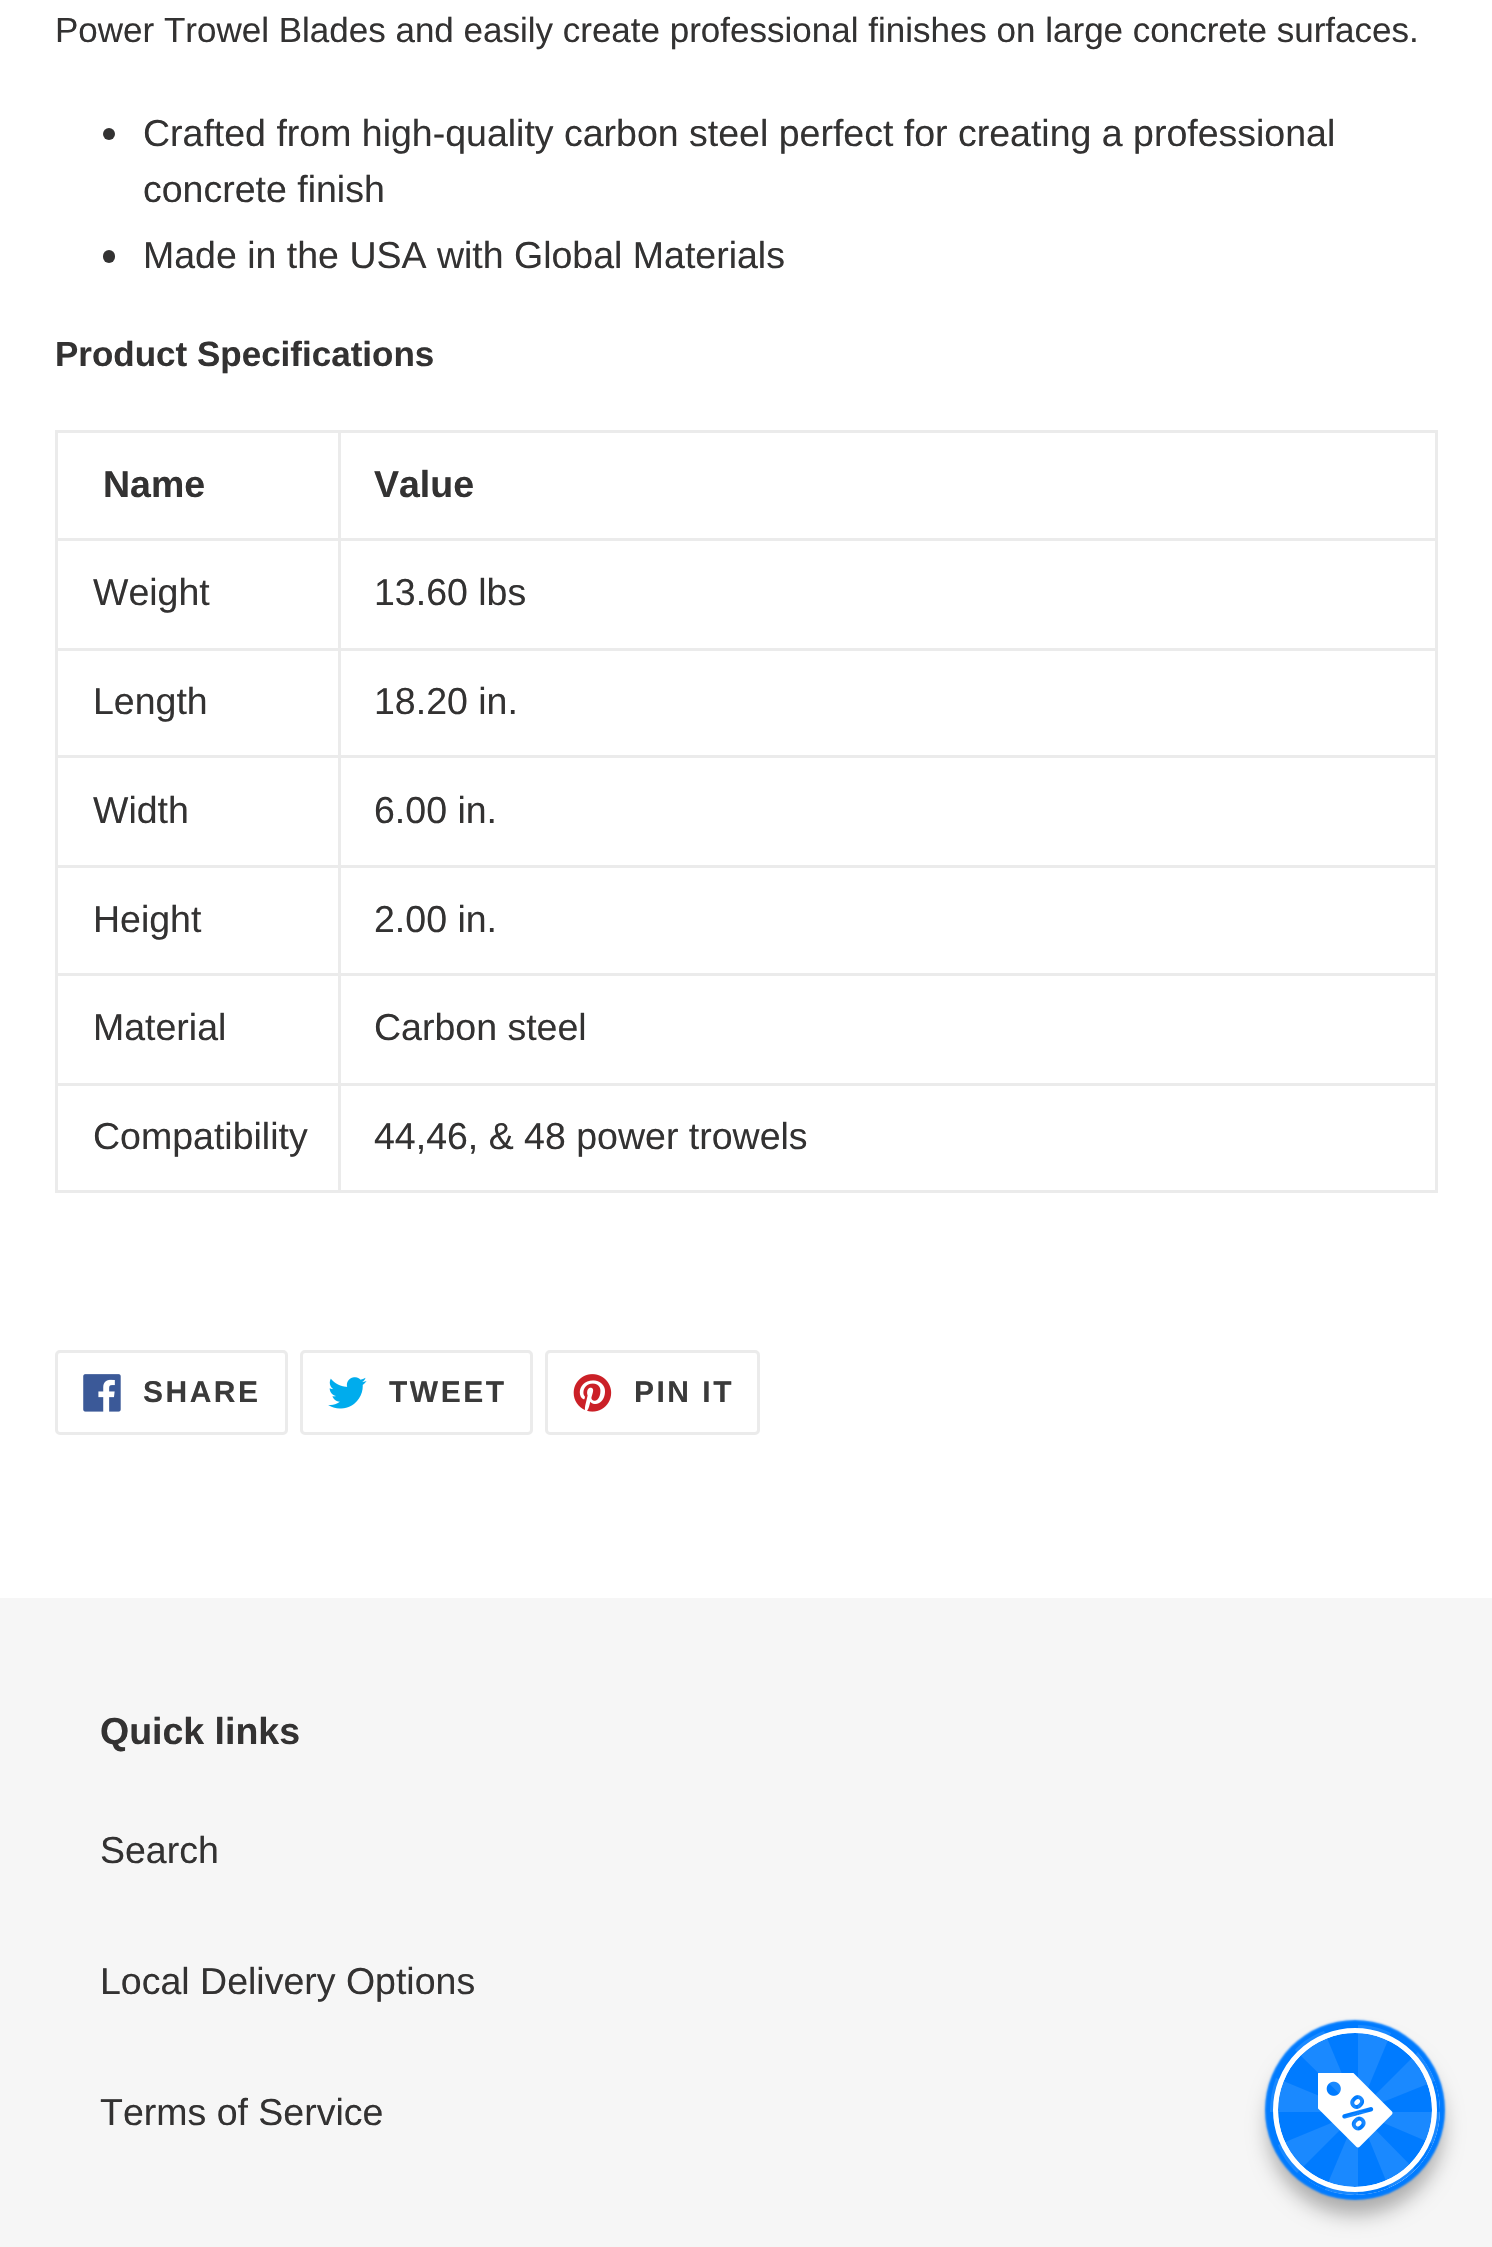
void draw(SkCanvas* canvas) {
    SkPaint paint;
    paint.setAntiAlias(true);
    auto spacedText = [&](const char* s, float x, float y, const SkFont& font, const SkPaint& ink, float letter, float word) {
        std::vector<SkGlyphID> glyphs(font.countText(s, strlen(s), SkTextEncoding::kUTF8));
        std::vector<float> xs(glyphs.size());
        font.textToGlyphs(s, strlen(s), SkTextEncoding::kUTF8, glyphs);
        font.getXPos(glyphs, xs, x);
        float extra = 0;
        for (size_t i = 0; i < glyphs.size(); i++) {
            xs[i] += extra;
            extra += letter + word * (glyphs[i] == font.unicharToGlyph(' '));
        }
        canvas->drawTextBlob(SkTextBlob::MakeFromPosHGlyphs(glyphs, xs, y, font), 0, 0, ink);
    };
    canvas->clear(0xFFFFFFFF);
    SkFont font1(fontMgr->matchFamilyStyle("Liberation Sans", SkFontStyle::Normal()), 35);
    font1.setSubpixel(true);
    paint.setColor(0xFF333232);
    canvas->drawString("Power Trowel Blades and easily create professional finishes on large concrete surfaces.", 55, 42, font1, paint);
    canvas->drawCircle(109, 134, 6, paint);
    SkFont font2(fontMgr->matchFamilyStyle("Liberation Sans", SkFontStyle::Normal()), 37.5f);
    font2.setSubpixel(true);
    canvas->drawString("Crafted from high-quality carbon steel perfect for creating a professional", 143, 146, font2, paint);
    canvas->drawString("concrete finish", 143, 202, font2, paint);
    canvas->drawRoundRect(SkRect::MakeXYWH(103, 250, 12, 13), 6, 6, paint);
    canvas->drawString("Made in the USA with Global Materials", 143, 268, font2, paint);
    SkFont font3(fontMgr->matchFamilyStyle("Liberation Sans", SkFontStyle::Bold()), 35);
    font3.setSubpixel(true);
    canvas->drawString("Product Specifications", 55, 366, font3, paint);
    paint.setColor(0xFFEBEBEB);
    canvas->drawRect(SkRect::MakeXYWH(338, 430, 1100, 3), paint);
    canvas->drawRect(SkRect::MakeXYWH(338, 538, 1100, 3), paint);
    canvas->drawRect(SkRect::MakeXYWH(338, 648, 1100, 3), paint);
    canvas->drawRect(SkRect::MakeXYWH(338, 755, 1100, 3), paint);
    canvas->drawRect(SkRect::MakeXYWH(338, 865, 1100, 3), paint);
    canvas->drawRect(SkRect::MakeXYWH(338, 973, 1100, 3), paint);
    canvas->drawRect(SkRect::MakeXYWH(338, 1083, 1100, 3), paint);
    canvas->drawRect(SkRect::MakeXYWH(1435, 1083, 3, 110), paint);
    canvas->drawRect(SkRect::MakeXYWH(338, 1190, 1100, 3), paint);
    canvas->drawRect(SkRect::MakeXYWH(338, 1083, 3, 110), paint);
    canvas->drawRect(SkRect::MakeXYWH(55, 1083, 285, 3), paint);
    canvas->drawRect(SkRect::MakeXYWH(338, 973, 3, 112), paint);
    canvas->drawRect(SkRect::MakeXYWH(55, 973, 285, 3), paint);
    canvas->drawRect(SkRect::MakeXYWH(338, 865, 3, 110), paint);
    canvas->drawRect(SkRect::MakeXYWH(55, 865, 285, 3), paint);
    canvas->drawRect(SkRect::MakeXYWH(338, 755, 3, 113), paint);
    canvas->drawRect(SkRect::MakeXYWH(55, 755, 285, 3), paint);
    canvas->drawRect(SkRect::MakeXYWH(338, 648, 3, 110), paint);
    canvas->drawRect(SkRect::MakeXYWH(55, 648, 285, 3), paint);
    canvas->drawRect(SkRect::MakeXYWH(338, 538, 3, 112), paint);
    canvas->drawRect(SkRect::MakeXYWH(55, 538, 285, 3), paint);
    canvas->drawRect(SkRect::MakeXYWH(338, 430, 3, 110), paint);
    canvas->drawRect(SkRect::MakeXYWH(55, 430, 285, 3), paint);
    canvas->drawRect(SkRect::MakeXYWH(55, 1190, 285, 3), paint);
    canvas->drawRect(SkRect::MakeXYWH(55, 1083, 3, 110), paint);
    canvas->drawRect(SkRect::MakeXYWH(55, 973, 3, 112), paint);
    canvas->drawRect(SkRect::MakeXYWH(55, 865, 3, 110), paint);
    canvas->drawRect(SkRect::MakeXYWH(55, 755, 3, 113), paint);
    canvas->drawRect(SkRect::MakeXYWH(55, 648, 3, 110), paint);
    canvas->drawRect(SkRect::MakeXYWH(55, 538, 3, 112), paint);
    canvas->drawRect(SkRect::MakeXYWH(55, 430, 3, 110), paint);
    SkFont font4(fontMgr->matchFamilyStyle("Liberation Sans", SkFontStyle::Bold()), 37.5f);
    font4.setSubpixel(true);
    paint.setColor(0xFF333232);
    canvas->drawString("Name", 103, 497, font4, paint);
    paint.setColor(0xFFEBEBEB);
    canvas->drawRect(SkRect::MakeXYWH(1435, 973, 3, 112), paint);
    canvas->drawRect(SkRect::MakeXYWH(1435, 865, 3, 110), paint);
    canvas->drawRect(SkRect::MakeXYWH(1435, 755, 3, 113), paint);
    canvas->drawRect(SkRect::MakeXYWH(1435, 648, 3, 110), paint);
    canvas->drawRect(SkRect::MakeXYWH(1435, 538, 3, 112), paint);
    canvas->drawRect(SkRect::MakeXYWH(1435, 430, 3, 110), paint);
    paint.setColor(0xFF333232);
    canvas->drawString("Value", 374, 497, font4, paint);
    canvas->drawString("Weight", 93, 605, font2, paint);
    canvas->drawString("13.60 lbs", 374, 605, font2, paint);
    canvas->drawString("Length", 93, 714, font2, paint);
    canvas->drawString("18.20 in.", 374, 714, font2, paint);
    canvas->drawString("Width", 93, 823, font2, paint);
    canvas->drawString("6.00 in.", 374, 823, font2, paint);
    canvas->drawString("Height", 93, 932, font2, paint);
    canvas->drawString("2.00 in.", 374, 932, font2, paint);
    canvas->drawString("Material", 93, 1040, font2, paint);
    canvas->drawString("Carbon steel", 374, 1040, font2, paint);
    canvas->drawString("Compatibility", 93, 1149, font2, paint);
    canvas->drawString("44,46, & 48 power trowels", 374, 1149, font2, paint);
    paint.setStyle(SkPaint::kStroke_Style);
    paint.setStrokeWidth(3);
    paint.setColor(0xFFEBEBEB);
    canvas->drawRoundRect(SkRect::MakeXYWH(56.5f, 1351.5f, 230, 82), 3.5f, 3.5f, paint);
    canvas->drawImageRect(SkImages::DeferredFromEncodedData(SkData::MakeFromFileName("img1.png")), SkRect::MakeXYWH(83, 1374, 38, 38), SkSamplingOptions());
    SkFont font5(fontMgr->matchFamilyStyle("Liberation Sans", SkFontStyle::Bold()), 30);
    font5.setSubpixel(true);
    paint.setStyle(SkPaint::kFill_Style);
    paint.setColor(0xFF3A3A3A);
    spacedText("SHARE", 143, 1402, font5, paint, 2.5f, 0);
    paint.setStyle(SkPaint::kStroke_Style);
    paint.setColor(0xFFEBEBEB);
    canvas->drawRoundRect(SkRect::MakeXYWH(301.5f, 1351.5f, 230, 82), 3.5f, 3.5f, paint);
    canvas->drawImageRect(SkImages::DeferredFromEncodedData(SkData::MakeFromFileName("img2.png")), SkRect::MakeXYWH(328, 1377, 39, 32), SkSamplingOptions());
    paint.setStyle(SkPaint::kFill_Style);
    paint.setColor(0xFF3A3A3A);
    spacedText("TWEET", 389, 1402, font5, paint, 2.5f, 0);
    paint.setStyle(SkPaint::kStroke_Style);
    paint.setColor(0xFFEBEBEB);
    canvas->drawRoundRect(SkRect::MakeXYWH(546.5f, 1351.5f, 212, 82), 3.5f, 3.5f, paint);
    canvas->drawImageRect(SkImages::DeferredFromEncodedData(SkData::MakeFromFileName("img3.png")), SkRect::MakeXYWH(573, 1374, 39, 38), SkSamplingOptions());
    paint.setStyle(SkPaint::kFill_Style);
    paint.setColor(0xFF3A3A3A);
    spacedText("PIN IT", 634, 1402, font5, paint, 2.5f, 0);
    paint.setColor(0xFFF6F6F6);
    canvas->drawRect(SkRect::MakeXYWH(0, 1598, 1492, 649), paint);
    paint.setColor(0xFF333232);
    canvas->drawString("Quick links", 100, 1744, font4, paint);
    canvas->drawString("Search", 100, 1863, font2, paint);
    canvas->drawString("Local Delivery Options", 100, 1994, font2, paint);
    canvas->drawString("Terms of Service", 100, 2125, font2, paint);
    paint.setColor(0x4D000000);
    paint.setMaskFilter(SkMaskFilter::MakeBlur(kNormal_SkBlurStyle, 10));
    canvas->drawRoundRect(SkRect::MakeXYWH(1268, 2040, 175, 175), 87.5f, 87.5f, paint);
    paint.setMaskFilter(nullptr);
    paint.setColor(0xFF007BFF);
    paint.setMaskFilter(SkMaskFilter::MakeBlur(kNormal_SkBlurStyle, 1));
    canvas->drawRoundRect(SkRect::MakeXYWH(1265, 2020, 180, 180), 90, 90, paint);
    paint.setMaskFilter(nullptr);
    canvas->drawCircle(1355.5f, 2110.5f, 87.5f, paint);
    paint.setStyle(SkPaint::kStroke_Style);
    paint.setStrokeWidth(8);
    paint.setColor(0xFFFFFFFF);
    canvas->drawCircle(1355, 2110, 81, paint);
    canvas->drawCircle(1355, 2110, 81, paint);
    paint.setStrokeWidth(3);
    paint.setColor(0xFF007BFF);
    canvas->drawCircle(1355, 2110, 83.5f, paint);
    canvas->drawCircle(1355.5f, 2110.5f, 86, paint);
    paint.setStyle(SkPaint::kFill_Style);
    paint.setColor(0x1AFFFFFF);
    canvas->drawPath(SkPathBuilder().moveTo(1324, 2031).cubicTo(1313, 2035, 1303, 2041, 1295, 2050).lineTo(1358, 2112).lineTo(1276, 2078).cubicTo(1272, 2089, 1270, 2100, 1270, 2112).lineTo(1358, 2112).lineTo(1278, 2145).cubicTo(1282, 2156, 1289, 2165, 1297, 2173).lineTo(1358, 2112).lineTo(1325, 2190).cubicTo(1336, 2194, 1347, 2195, 1358, 2195).lineTo(1358, 2112).lineTo(1389, 2188).cubicTo(1399, 2184, 1408, 2177, 1415, 2170).lineTo(1358, 2112).lineTo(1433, 2144).cubicTo(1437, 2134, 1440, 2123, 1440, 2112).lineTo(1358, 2112).lineTo(1435, 2081).cubicTo(1431, 2070, 1425, 2061, 1418, 2052).lineTo(1358, 2112).lineTo(1391, 2033).cubicTo(1381, 2028, 1370, 2025, 1358, 2025).lineTo(1358, 2112).close().detach(), paint);
    canvas->drawImageRect(SkImages::DeferredFromEncodedData(SkData::MakeFromFileName("img4.png")), SkRect::MakeXYWH(1318, 2073, 75, 75), SkSamplingOptions());
}
